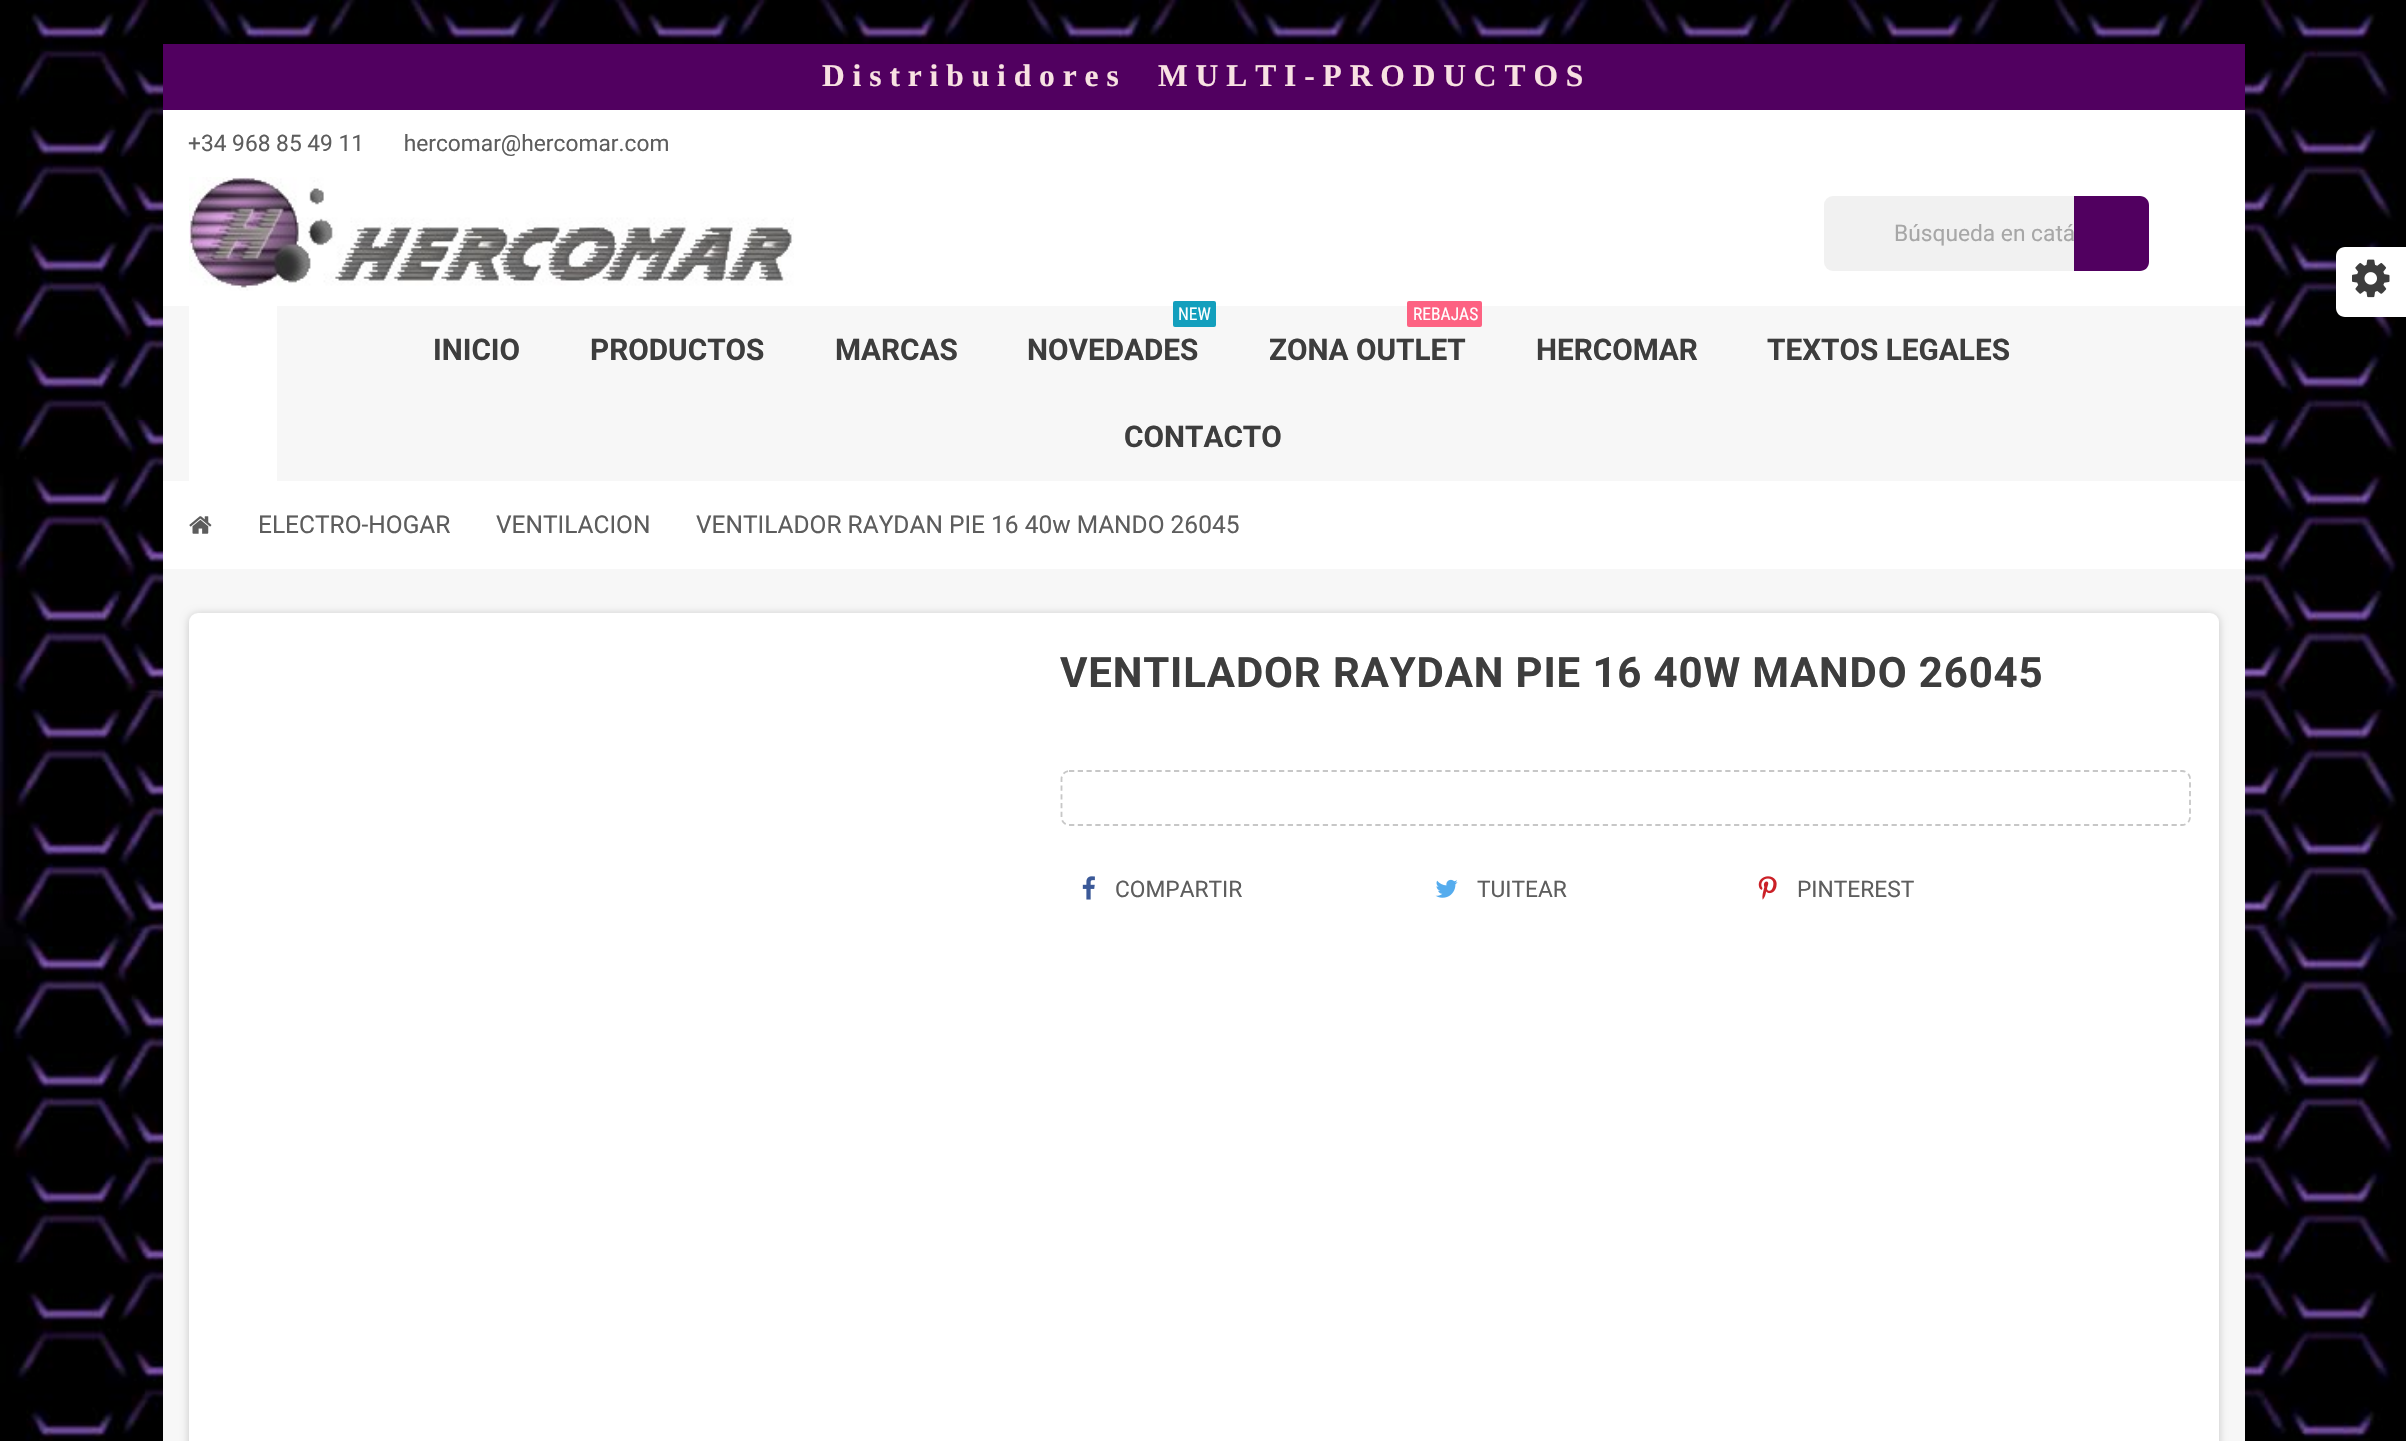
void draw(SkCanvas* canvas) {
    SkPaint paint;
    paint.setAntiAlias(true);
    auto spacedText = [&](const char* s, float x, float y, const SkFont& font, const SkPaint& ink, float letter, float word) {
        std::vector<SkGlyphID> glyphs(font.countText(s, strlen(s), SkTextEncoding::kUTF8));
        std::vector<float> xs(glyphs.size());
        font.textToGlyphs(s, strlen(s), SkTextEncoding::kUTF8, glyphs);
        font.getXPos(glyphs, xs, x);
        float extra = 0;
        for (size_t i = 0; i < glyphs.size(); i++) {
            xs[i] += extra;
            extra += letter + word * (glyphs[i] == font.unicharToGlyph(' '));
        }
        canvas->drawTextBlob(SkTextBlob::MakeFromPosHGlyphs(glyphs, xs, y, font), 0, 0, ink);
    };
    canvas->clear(0xFFFFFFFF);
    canvas->drawImageRect(SkImages::DeferredFromEncodedData(SkData::MakeFromFileName("img1.png")), SkRect::MakeXYWH(0, 0, 2406, 1441), SkSamplingOptions());
    paint.setColor(0xFFFFFFFF);
    canvas->drawRect(SkRect::MakeXYWH(163, 110, 2082, 196), paint);
    paint.setColor(0xFF510060);
    canvas->drawRect(SkRect::MakeXYWH(163, 44, 2082, 66), paint);
    SkFont font1(fontMgr->matchFamilyStyle("Liberation Serif", SkFontStyle::Bold()), 31.5f);
    font1.setSubpixel(true);
    paint.setColor(0xFFF8E1E2);
    canvas->drawString("D i s t r i b u i d o r e s     M U L T I - P R O D U C T O S", 822, 86, font1, paint);
    SkFont font2(fontMgr->matchFamilyStyle("Roboto", SkFontStyle::Normal()), 22.75f);
    font2.setSubpixel(true);
    paint.setColor(0xFF5D5D5D);
    canvas->drawString("+34 968 85 49 11       hercomar@hercomar.com", 188, 151, font2, paint);
    canvas->drawImageRect(SkImages::DeferredFromEncodedData(SkData::MakeFromFileName("img2.png")), SkRect::MakeXYWH(189, 177, 605, 114), SkSamplingOptions());
    paint.setColor(0xFFF1F1F1);
    canvas->drawRoundRect(SkRect::MakeXYWH(1824, 196, 323, 75), 9, 9, paint);
    paint.setColor(0xFFA7A7A7);
    canvas->drawString("Búsqueda en catá", 1894, 241, font2, paint);
    paint.setColor(0xFF510060);
    canvas->drawPath(SkPathBuilder().moveTo(2074, 196).lineTo(2140, 196).cubicTo(2145, 196, 2149, 200, 2149, 205).lineTo(2149, 262).cubicTo(2149, 267, 2145, 271, 2140, 271).lineTo(2074, 271).close().detach(), paint);
    paint.setColor(0xFFF7F7F7);
    canvas->drawRect(SkRect::MakeXYWH(163, 306, 2082, 175), paint);
    paint.setColor(0xFFFFFFFF);
    canvas->drawRect(SkRect::MakeXYWH(189, 306, 88, 175), paint);
    SkFont font3(fontMgr->matchFamilyStyle("Roboto", SkFontStyle::Bold()), 29.75f);
    font3.setSubpixel(true);
    paint.setColor(0xFF3D3D3D);
    canvas->drawString("INICIO", 433, 360, font3, paint);
    canvas->drawString("PRODUCTOS", 590, 360, font3, paint);
    canvas->drawString("MARCAS", 835, 360, font3, paint);
    paint.setColor(0xFF139FBD);
    canvas->drawRoundRect(SkRect::MakeXYWH(1173, 301, 43, 26), 2, 2, paint);
    SkFont font4(fontMgr->matchFamilyStyle("Roboto Condensed", SkFontStyle::Normal()), 17.5f);
    font4.setSubpixel(true);
    paint.setColor(0xFFFFFFFF);
    canvas->drawString("NEW", 1178, 320, font4, paint);
    paint.setColor(0xFF3D3D3D);
    canvas->drawString("NOVEDADES", 1027, 360, font3, paint);
    paint.setColor(0xFFFD6282);
    canvas->drawRoundRect(SkRect::MakeXYWH(1407, 301, 75, 26), 2, 2, paint);
    paint.setColor(0xFFFFFFFF);
    canvas->drawString("REBAJAS", 1413, 320, font4, paint);
    paint.setColor(0xFF3D3D3D);
    canvas->drawString("ZONA OUTLET", 1269, 360, font3, paint);
    canvas->drawString("HERCOMAR", 1536, 360, font3, paint);
    canvas->drawString("TEXTOS LEGALES", 1767, 360, font3, paint);
    canvas->drawString("CONTACTO", 1124, 447, font3, paint);
    paint.setColor(0xFFF7F7F7);
    canvas->drawRect(SkRect::MakeXYWH(163, 569, 2082, 872), paint);
    paint.setColor(0xFFFFFFFF);
    canvas->drawRect(SkRect::MakeXYWH(163, 481, 2082, 88), paint);
    canvas->drawImageRect(SkImages::DeferredFromEncodedData(SkData::MakeFromFileName("img3.png")), SkRect::MakeXYWH(189, 516, 23, 18), SkSamplingOptions());
    SkFont font5(fontMgr->matchFamilyStyle("Roboto", SkFontStyle::Normal()), 24.5f);
    font5.setSubpixel(true);
    paint.setColor(0xFF5D5D5D);
    canvas->drawString("ELECTRO-HOGAR", 258, 533, font5, paint);
    canvas->drawString("VENTILACION", 496, 533, font5, paint);
    canvas->drawString("VENTILADOR RAYDAN PIE 16 40w MANDO 26045", 696, 533, font5, paint);
    paint.setColor(0x33000000);
    paint.setMaskFilter(SkMaskFilter::MakeBlur(kNormal_SkBlurStyle, 4.5f));
    canvas->drawRoundRect(SkRect::MakeXYWH(189, 614, 2030, 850), 9, 9, paint);
    paint.setMaskFilter(nullptr);
    paint.setColor(0xFFFFFFFF);
    canvas->drawRoundRect(SkRect::MakeXYWH(189, 613, 2030, 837), 9, 9, paint);
    SkFont font6(fontMgr->matchFamilyStyle("Roboto", SkFontStyle::Bold()), 42);
    font6.setSubpixel(true);
    paint.setColor(0xFF3D3D3D);
    spacedText("VENTILADOR RAYDAN PIE 16 40W MANDO 26045", 1060, 687, font6, paint, 0.85f, 0);
    paint.setStyle(SkPaint::kStroke_Style);
    paint.setStrokeWidth(1.8f);
    paint.setColor(0xFFC7C7C7);
    paint.setPathEffect(SkDashPathEffect::Make({{5.25f, 3.5f}}, 0));
    canvas->drawPath(SkPathBuilder().moveTo(1069, 771).lineTo(2182, 771).cubicTo(2186.5f, 771, 2190, 774.5f, 2190, 779).lineTo(2190, 817).cubicTo(2190, 821.5f, 2186.5f, 825, 2182, 825).lineTo(1069, 825).cubicTo(1065, 825, 1061.5f, 821.5f, 1061.5f, 817).lineTo(1061.5f, 779).cubicTo(1061.5f, 774.5f, 1065, 771, 1069, 771).close().detach(), paint);
    paint.setPathEffect(nullptr);
    canvas->drawImageRect(SkImages::DeferredFromEncodedData(SkData::MakeFromFileName("img4.png")), SkRect::MakeXYWH(1082, 876, 13, 24), SkSamplingOptions());
    paint.setStyle(SkPaint::kFill_Style);
    paint.setColor(0xFF5D5D5D);
    canvas->drawString("COMPARTIR", 1115, 897, font2, paint);
    canvas->drawImageRect(SkImages::DeferredFromEncodedData(SkData::MakeFromFileName("img5.png")), SkRect::MakeXYWH(1435, 879, 23, 19), SkSamplingOptions());
    canvas->drawString("TUITEAR", 1477, 897, font2, paint);
    canvas->drawImageRect(SkImages::DeferredFromEncodedData(SkData::MakeFromFileName("img6.png")), SkRect::MakeXYWH(1758, 876, 19, 24), SkSamplingOptions());
    canvas->drawString("PINTEREST", 1797, 897, font2, paint);
    paint.setColor(0x33000000);
    paint.setMaskFilter(SkMaskFilter::MakeBlur(kNormal_SkBlurStyle, 9));
    canvas->drawRoundRect(SkRect::MakeXYWH(2335, 250, 63, 63), 5, 5, paint);
    paint.setMaskFilter(nullptr);
    paint.setColor(0xFFFFFFFF);
    canvas->drawPath(SkPathBuilder().moveTo(2345, 247).lineTo(2406, 247).lineTo(2406, 317).lineTo(2345, 317).cubicTo(2340, 317, 2336, 313, 2336, 308).lineTo(2336, 256).cubicTo(2336, 251, 2340, 247, 2345, 247).close().detach(), paint);
    canvas->drawImageRect(SkImages::DeferredFromEncodedData(SkData::MakeFromFileName("img7.png")), SkRect::MakeXYWH(2352, 259, 38, 39), SkSamplingOptions());
}
